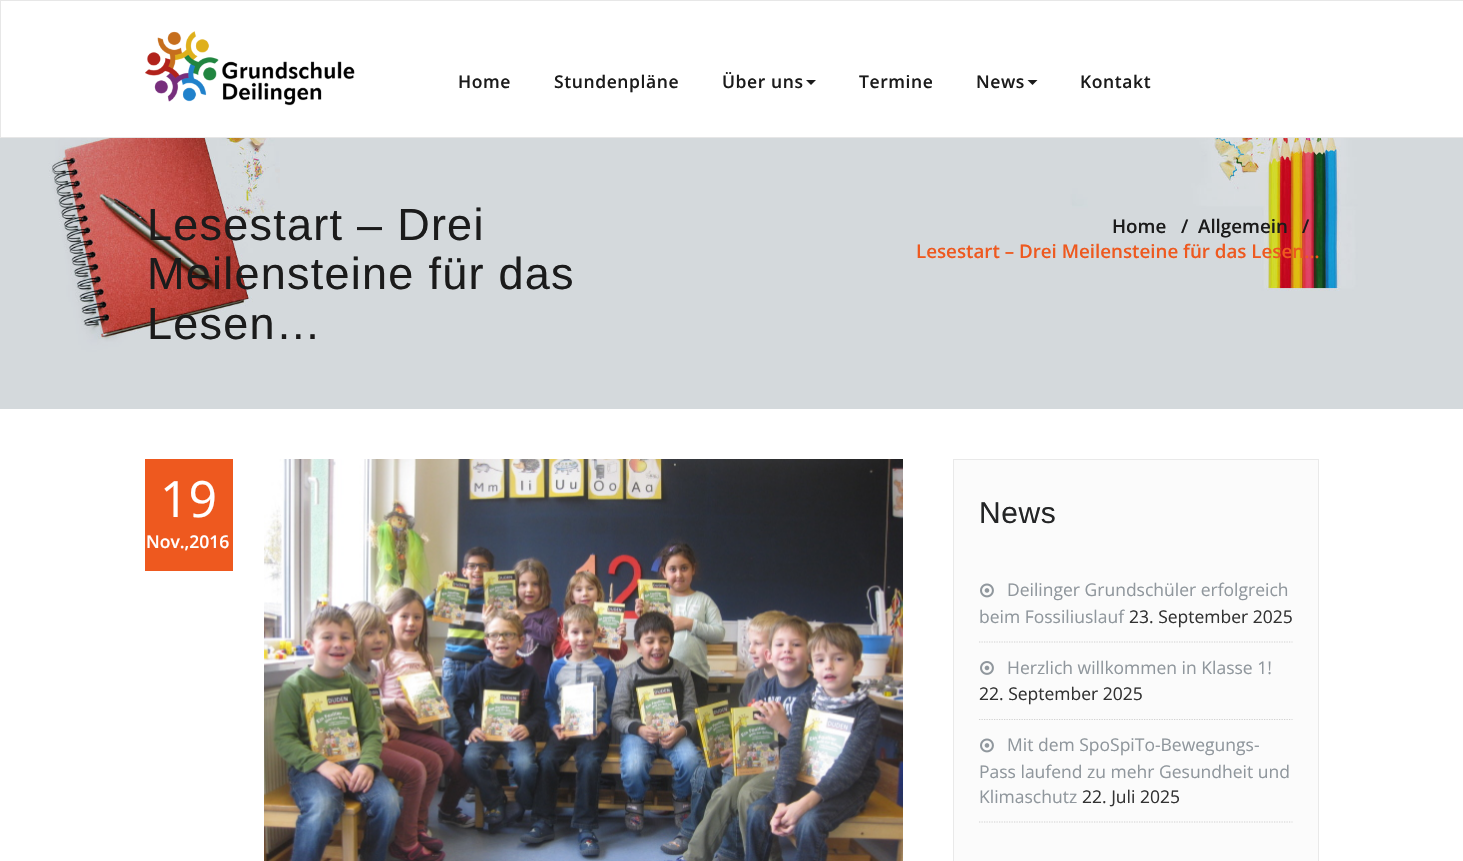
void draw(SkCanvas* canvas) {
    SkPaint paint;
    paint.setAntiAlias(true);
    auto spacedText = [&](const char* s, float x, float y, const SkFont& font, const SkPaint& ink, float letter, float word) {
        std::vector<SkGlyphID> glyphs(font.countText(s, strlen(s), SkTextEncoding::kUTF8));
        std::vector<float> xs(glyphs.size());
        font.textToGlyphs(s, strlen(s), SkTextEncoding::kUTF8, glyphs);
        font.getXPos(glyphs, xs, x);
        float extra = 0;
        for (size_t i = 0; i < glyphs.size(); i++) {
            xs[i] += extra;
            extra += letter + word * (glyphs[i] == font.unicharToGlyph(' '));
        }
        canvas->drawTextBlob(SkTextBlob::MakeFromPosHGlyphs(glyphs, xs, y, font), 0, 0, ink);
    };
    canvas->clear(0xFFFFFFFF);
    paint.setStyle(SkPaint::kStroke_Style);
    paint.setStrokeWidth(1);
    paint.setColor(0xFFE7E7E7);
    canvas->drawRect(SkRect::MakeXYWH(0.5f, 0.5f, 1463, 137), paint);
    canvas->drawImageRect(SkImages::DeferredFromEncodedData(SkData::MakeFromFileName("img1.png")), SkRect::MakeXYWH(145, 31, 210, 75), SkSamplingOptions());
    SkFont font1(fontMgr->matchFamilyStyle("Open Sans", SkFontStyle(600, SkFontStyle::kNormal_Width, SkFontStyle::kUpright_Slant)), 17.5f);
    font1.setSubpixel(true);
    paint.setStyle(SkPaint::kFill_Style);
    paint.setColor(0xFF1B1B1B);
    spacedText("Home", 458, 88, font1, paint, 0.6f, 0);
    spacedText("Stundenpläne", 554, 88, font1, paint, 0.6f, 0);
    spacedText("Über uns", 722, 88, font1, paint, 0.6f, 0);
    canvas->drawPath(SkPathBuilder().moveTo(806, 80).lineTo(816, 80).lineTo(811, 85).close().detach(), paint);
    spacedText("Termine", 859, 88, font1, paint, 0.6f, 0);
    spacedText("News", 976, 88, font1, paint, 0.6f, 0);
    canvas->drawPath(SkPathBuilder().moveTo(1027.5f, 80).lineTo(1037.5f, 80).lineTo(1032.5f, 85).close().detach(), paint);
    spacedText("Kontakt", 1080, 88, font1, paint, 0.6f, 0);
    canvas->drawImageRect(SkImages::DeferredFromEncodedData(SkData::MakeFromFileName("img2.png")), SkRect::MakeXYWH(0, 138, 1463, 271), SkSamplingOptions());
    SkFont font2(fontMgr->matchFamilyStyle("Liberation Sans", SkFontStyle::Normal()), 45);
    font2.setSubpixel(true);
    spacedText("Lesestart – Drei", 147, 240, font2, paint, 1.25f, 0);
    spacedText("Meilensteine für das", 147, 289, font2, paint, 1.25f, 0);
    spacedText("Lesen…", 147, 339, font2, paint, 1.25f, 0);
    SkFont font3(fontMgr->matchFamilyStyle("Open Sans", SkFontStyle(600, SkFontStyle::kNormal_Width, SkFontStyle::kUpright_Slant)), 18.75f);
    font3.setSubpixel(true);
    canvas->drawString("Home", 1112, 233, font3, paint);
    canvas->drawString("/", 1181, 233, font3, paint);
    canvas->drawString("Allgemein", 1198, 233, font3, paint);
    canvas->drawString("/", 1302, 233, font3, paint);
    paint.setColor(0xFFEE591F);
    canvas->drawString("Lesestart – Drei Meilensteine für das Lesen…", 916, 258, font3, paint);
    canvas->drawRect(SkRect::MakeXYWH(145, 459, 88, 112), paint);
    SkFont font4(fontMgr->matchFamilyStyle("Open Sans", SkFontStyle::Normal()), 50);
    font4.setSubpixel(true);
    paint.setColor(0xFFFFFFFF);
    canvas->drawString("19", 160, 517, font4, paint);
    canvas->drawString("Nov.,2016", 146, 548, font1, paint);
    canvas->drawImageRect(SkImages::DeferredFromEncodedData(SkData::MakeFromFileName("img3.png")), SkRect::MakeXYWH(264, 459, 639, 402), SkSamplingOptions());
    paint.setColor(0xFFFBFBFB);
    canvas->drawRect(SkRect::MakeXYWH(953.5f, 459.5f, 365, 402), paint);
    paint.setStyle(SkPaint::kStroke_Style);
    paint.setColor(0xFFE9E9E9);
    canvas->drawRect(SkRect::MakeXYWH(953.5f, 459.5f, 365, 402), paint);
    SkFont font5(fontMgr->matchFamilyStyle("Liberation Sans", SkFontStyle::Normal()), 30);
    font5.setSubpixel(true);
    paint.setStyle(SkPaint::kFill_Style);
    paint.setColor(0xFF242526);
    spacedText("News", 979, 523, font5, paint, 0.6f, 0);
    paint.setStyle(SkPaint::kStroke_Style);
    paint.setStrokeWidth(1.2f);
    paint.setColor(0xFFD1D1D1);
    paint.setPathEffect(SkDashPathEffect::Make({{1.25f, 1.25f}}, 0));
    canvas->drawPath(SkPathBuilder().moveTo(979, 642).lineTo(1292.5f, 642).detach(), paint);
    paint.setPathEffect(nullptr);
    canvas->drawImageRect(SkImages::DeferredFromEncodedData(SkData::MakeFromFileName("img4.png")), SkRect::MakeXYWH(980, 583, 14, 15), SkSamplingOptions());
    SkFont font6(fontMgr->matchFamilyStyle("Open Sans", SkFontStyle::Normal()), 17.5f);
    font6.setSubpixel(true);
    paint.setStyle(SkPaint::kFill_Style);
    paint.setColor(0xFF90979D);
    canvas->drawString("Deilinger Grundschüler erfolgreich", 1007, 596, font6, paint);
    canvas->drawString("beim Fossiliuslauf", 979, 623, font6, paint);
    paint.setColor(0xFF333333);
    canvas->drawString("23. September 2025", 1129, 623, font6, paint);
    paint.setStyle(SkPaint::kStroke_Style);
    paint.setColor(0xFFD1D1D1);
    paint.setPathEffect(SkDashPathEffect::Make({{1.25f, 1.25f}}, 0));
    canvas->drawPath(SkPathBuilder().moveTo(979, 719.5f).lineTo(1292.5f, 719.5f).detach(), paint);
    paint.setPathEffect(nullptr);
    canvas->drawImageRect(SkImages::DeferredFromEncodedData(SkData::MakeFromFileName("img5.png")), SkRect::MakeXYWH(980, 661, 14, 14), SkSamplingOptions());
    paint.setStyle(SkPaint::kFill_Style);
    paint.setColor(0xFF90979D);
    canvas->drawString("Herzlich willkommen in Klasse 1!", 1007, 674, font6, paint);
    paint.setColor(0xFF333333);
    canvas->drawString("22. September 2025", 979, 700, font6, paint);
    paint.setStyle(SkPaint::kStroke_Style);
    paint.setColor(0xFFD1D1D1);
    paint.setPathEffect(SkDashPathEffect::Make({{1.25f, 1.25f}}, 0));
    canvas->drawPath(SkPathBuilder().moveTo(979, 822).lineTo(1292.5f, 822).detach(), paint);
    paint.setPathEffect(nullptr);
    canvas->drawImageRect(SkImages::DeferredFromEncodedData(SkData::MakeFromFileName("img4.png")), SkRect::MakeXYWH(980, 738, 14, 15), SkSamplingOptions());
    paint.setStyle(SkPaint::kFill_Style);
    paint.setColor(0xFF90979D);
    canvas->drawString("Mit dem SpoSpiTo-Bewegungs-", 1007, 751, font6, paint);
    canvas->drawString("Pass laufend zu mehr Gesundheit und", 979, 778, font6, paint);
    canvas->drawString("Klimaschutz", 979, 803, font6, paint);
    paint.setColor(0xFF333333);
    canvas->drawString("22. Juli 2025", 1082, 803, font6, paint);
}
